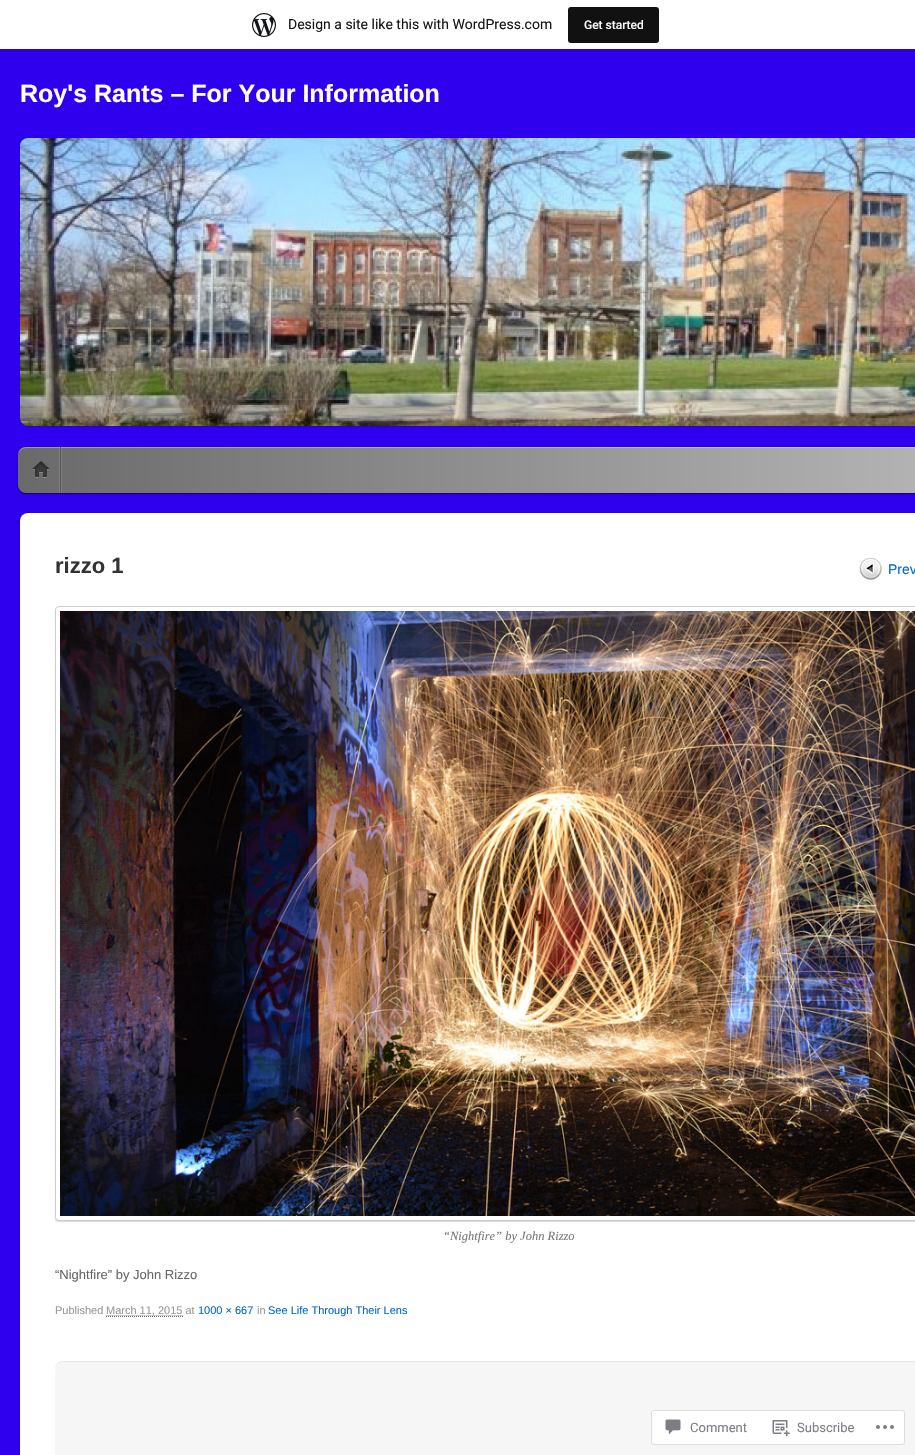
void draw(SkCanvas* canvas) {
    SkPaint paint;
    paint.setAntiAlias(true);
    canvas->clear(0xFF2F00ED);
    paint.setColor(0x0D000000);
    paint.setMaskFilter(SkMaskFilter::MakeBlur(kNormal_SkBlurStyle, 1));
    canvas->drawRect(SkRect::MakeXYWH(0, 1, 915, 49), paint);
    paint.setMaskFilter(nullptr);
    paint.setColor(0x14000000);
    canvas->drawPath(SkPathBuilder().moveTo(1, 49).lineTo(1, 52).lineTo(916, 52).lineTo(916, 3).lineTo(915, 3).lineTo(915, 49).close().detach(), paint);
    paint.setColor(0xFFFFFFFF);
    canvas->drawRect(SkRect::MakeXYWH(0, 0, 915, 49), paint);
    canvas->drawImageRect(SkImages::DeferredFromEncodedData(SkData::MakeFromFileName("img1.png")), SkRect::MakeXYWH(252, 13, 24, 24), SkSamplingOptions());
    SkFont font1(fontMgr->matchFamilyStyle("Roboto", SkFontStyle::Normal()), 14);
    font1.setSubpixel(true);
    paint.setColor(0xFF171717);
    canvas->drawString("Design a site like this with WordPress.com", 288, 29, font1, paint);
    paint.setColor(0xFF111111);
    canvas->drawRoundRect(SkRect::MakeXYWH(568, 7, 91, 36), 3, 3, paint);
    SkFont font2(fontMgr->matchFamilyStyle("Roboto", SkFontStyle(500, SkFontStyle::kNormal_Width, SkFontStyle::kUpright_Slant)), 12);
    font2.setSubpixel(true);
    paint.setColor(0xFFF6F7F7);
    canvas->drawString("Get started", 584, 29, font2, paint);
    SkFont font3(fontMgr->matchFamilyStyle("Liberation Sans", SkFontStyle::Bold()), 25);
    font3.setSubpixel(true);
    paint.setColor(0xFFFFFFFF);
    canvas->drawString("Roy's Rants – For Your Information", 20, 102, font3, paint);
    paint.setColor(0x26000000);
    paint.setMaskFilter(SkMaskFilter::MakeBlur(kNormal_SkBlurStyle, 0.5f));
    canvas->drawRoundRect(SkRect::MakeXYWH(20, 139, 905, 288), 8, 8, paint);
    paint.setMaskFilter(nullptr);
    canvas->drawImageRect(SkImages::DeferredFromEncodedData(SkData::MakeFromFileName("img2.png")), SkRect::MakeXYWH(20, 138, 895, 288), SkSamplingOptions());
    paint.setColor(0x4D000000);
    paint.setMaskFilter(SkMaskFilter::MakeBlur(kNormal_SkBlurStyle, 1.5f));
    canvas->drawRoundRect(SkRect::MakeXYWH(18, 448, 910, 46), 8, 8, paint);
    paint.setMaskFilter(nullptr);
    canvas->drawPath(SkPathBuilder().moveTo(18, 485).cubicTo(18, 490, 21, 494, 26, 494).lineTo(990, 494).cubicTo(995, 494, 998, 490, 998, 485).cubicTo(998, 489, 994, 493, 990, 493).lineTo(26, 493).cubicTo(22, 493, 18, 489, 18, 485).close().detach(), paint);
    {
        const SkColor colors[] = {0xFFB9B9B9, 0xFF6A6A6A};
        const float stops[] = {0, 1};
        const SkPoint ends[] = {{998, 470}, {18, 470}};
        paint.setShader(SkGradientShader::MakeLinear(ends, colors, stops, 2, SkTileMode::kClamp));
        paint.setAlpha(255);
    }
    canvas->drawRoundRect(SkRect::MakeXYWH(18, 447, 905, 46), 8, 8, paint);
    paint.setShader(nullptr);
    paint.setColor(0x4DFFFFFF);
    canvas->drawPath(SkPathBuilder().moveTo(26, 448).lineTo(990, 448).cubicTo(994, 448, 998, 452, 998, 456).cubicTo(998, 451, 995, 447, 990, 447).lineTo(26, 447).cubicTo(21, 447, 18, 451, 18, 456).cubicTo(18, 452, 22, 448, 26, 448).close().detach(), paint);
    paint.setColor(0x1AFFFFFF);
    canvas->drawRect(SkRect::MakeXYWH(61, 447, 1, 46), paint);
    canvas->drawRect(SkRect::MakeXYWH(59, 447, 1, 46), paint);
    paint.setColor(0xFF575757);
    canvas->drawRect(SkRect::MakeXYWH(60, 447, 1, 46), paint);
    canvas->drawImageRect(SkImages::DeferredFromEncodedData(SkData::MakeFromFileName("img3.png")), SkRect::MakeXYWH(32, 461, 18, 17), SkSamplingOptions());
    paint.setColor(0x66000000);
    paint.setMaskFilter(SkMaskFilter::MakeBlur(kNormal_SkBlurStyle, 1.5f));
    canvas->drawRoundRect(SkRect::MakeXYWH(20, 514, 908, 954), 8, 8, paint);
    paint.setMaskFilter(nullptr);
    paint.setColor(0xFFFFFFFF);
    canvas->drawRoundRect(SkRect::MakeXYWH(20, 513, 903, 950), 8, 8, paint);
    SkFont font4(fontMgr->matchFamilyStyle("Liberation Sans", SkFontStyle::Bold()), 22);
    font4.setSubpixel(true);
    paint.setColor(0xFF333333);
    canvas->drawString("rizzo 1", 55, 573, font4, paint);
    canvas->drawImageRect(SkImages::DeferredFromEncodedData(SkData::MakeFromFileName("img4.png")), SkRect::MakeXYWH(859, 557, 23, 24), SkSamplingOptions());
    SkFont font5(fontMgr->matchFamilyStyle("Liberation Sans", SkFontStyle::Normal()), 14);
    font5.setSubpixel(true);
    paint.setColor(0xFF026ACB);
    canvas->drawString("Prev", 888, 574, font5, paint);
    paint.setColor(0x26000000);
    paint.setMaskFilter(SkMaskFilter::MakeBlur(kNormal_SkBlurStyle, 0.5f));
    canvas->drawRoundRect(SkRect::MakeXYWH(55, 607, 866, 615), 4, 4, paint);
    paint.setMaskFilter(nullptr);
    paint.setColor(0xFFFFFFFF);
    canvas->drawRoundRect(SkRect::MakeXYWH(55.5f, 606.5f, 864, 614), 3.5f, 3.5f, paint);
    paint.setStyle(SkPaint::kStroke_Style);
    paint.setStrokeWidth(1);
    paint.setColor(0xFFCCCCCC);
    canvas->drawRoundRect(SkRect::MakeXYWH(55.5f, 606.5f, 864, 614), 3.5f, 3.5f, paint);
    canvas->drawImageRect(SkImages::DeferredFromEncodedData(SkData::MakeFromFileName("img5.png")), SkRect::MakeXYWH(60, 611, 855, 605), SkSamplingOptions());
    SkFont font6(fontMgr->matchFamilyStyle("Liberation Serif", SkFontStyle::Italic()), 12.5f);
    font6.setSubpixel(true);
    paint.setStyle(SkPaint::kFill_Style);
    paint.setColor(0xFF777777);
    canvas->drawString("“Nightfire” by John Rizzo", 443, 1240, font6, paint);
    SkFont font7(fontMgr->matchFamilyStyle("Liberation Sans", SkFontStyle::Normal()), 13);
    font7.setSubpixel(true);
    paint.setColor(0xFF666666);
    canvas->drawString("“Nightfire” by John Rizzo", 55, 1279, font7, paint);
    SkFont font8(fontMgr->matchFamilyStyle("Liberation Sans", SkFontStyle::Normal()), 11);
    font8.setSubpixel(true);
    paint.setColor(0xFF999999);
    canvas->drawString("Published", 55, 1314, font8, paint);
    paint.setStyle(SkPaint::kStroke_Style);
    paint.setPathEffect(SkDashPathEffect::Make({{1, 1}}, 0));
    canvas->drawPath(SkPathBuilder().moveTo(106.5f, 1315.5f).lineTo(183, 1315.5f).detach(), paint);
    paint.setPathEffect(nullptr);
    paint.setStyle(SkPaint::kFill_Style);
    canvas->drawString("March 11, 2015 at", 106, 1314, font8, paint);
    paint.setStyle(SkPaint::kStroke_Style);
    paint.setColor(0xFF666666);
    paint.setPathEffect(SkDashPathEffect::Make({{1, 1}}, 0));
    canvas->drawPath(SkPathBuilder().moveTo(106, 1316.5f).lineTo(183, 1316.5f).detach(), paint);
    paint.setPathEffect(nullptr);
    paint.setStyle(SkPaint::kFill_Style);
    paint.setColor(0xFF026ACB);
    canvas->drawString("1000 × 667", 198, 1314, font8, paint);
    paint.setColor(0xFF999999);
    canvas->drawString("in", 257, 1314, font8, paint);
    paint.setColor(0xFF026ACB);
    canvas->drawString("See Life Through Their Lens", 268, 1314, font8, paint);
    paint.setColor(0xFFE6E6E6);
    canvas->drawPath(SkPathBuilder().moveTo(63, 1361).cubicTo(58, 1361, 55, 1365, 55, 1370).cubicTo(55, 1366, 59, 1362, 63, 1362).lineTo(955, 1362).cubicTo(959, 1362, 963, 1366, 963, 1370).cubicTo(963, 1365, 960, 1361, 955, 1361).close().detach(), paint);
    paint.setColor(0xFFF6F6F6);
    canvas->drawRoundRect(SkRect::MakeXYWH(55, 1362, 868, 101), 8, 8, paint);
    paint.setColor(0xFFFFFFFF);
    canvas->drawRoundRect(SkRect::MakeXYWH(651.5f, 1410.5f, 253, 34), 2.5f, 2.5f, paint);
    paint.setStyle(SkPaint::kStroke_Style);
    paint.setColor(0xFFDDDDDE);
    canvas->drawRoundRect(SkRect::MakeXYWH(651.5f, 1410.5f, 253, 34), 2.5f, 2.5f, paint);
    canvas->drawImageRect(SkImages::DeferredFromEncodedData(SkData::MakeFromFileName("img6.png")), SkRect::MakeXYWH(665, 1419, 16, 16), SkSamplingOptions());
    SkFont font9(fontMgr->matchFamilyStyle("Roboto", SkFontStyle::Normal()), 13);
    font9.setSubpixel(true);
    paint.setStyle(SkPaint::kFill_Style);
    paint.setColor(0xFF7B7E84);
    canvas->drawString("Comment", 690, 1432, font9, paint);
    canvas->drawImageRect(SkImages::DeferredFromEncodedData(SkData::MakeFromFileName("img7.png")), SkRect::MakeXYWH(772, 1420, 18, 17), SkSamplingOptions());
    canvas->drawString("Subscribe", 797, 1432, font9, paint);
    canvas->drawImageRect(SkImages::DeferredFromEncodedData(SkData::MakeFromFileName("img8.png")), SkRect::MakeXYWH(876, 1425, 18, 4), SkSamplingOptions());
}
